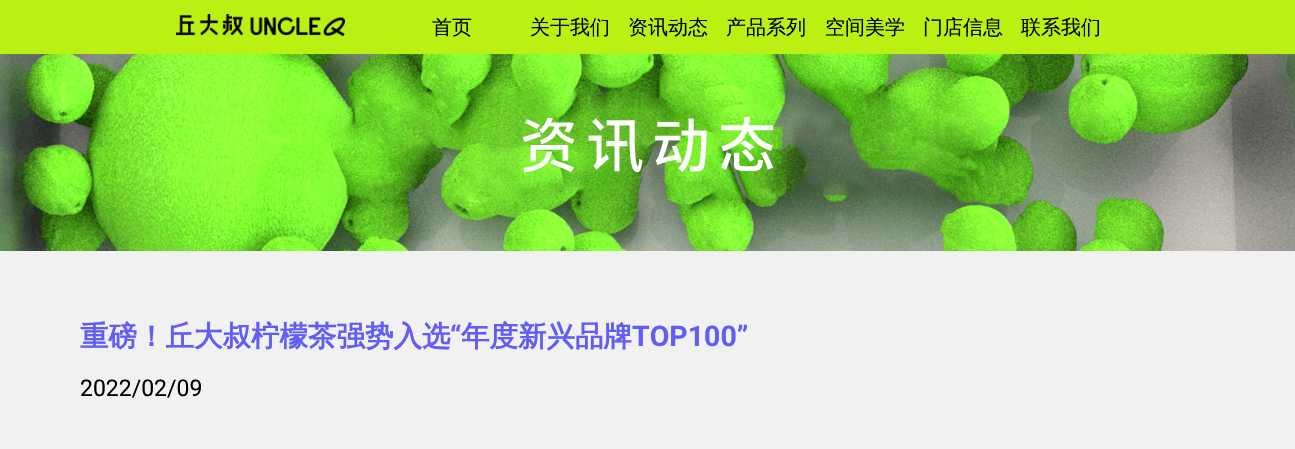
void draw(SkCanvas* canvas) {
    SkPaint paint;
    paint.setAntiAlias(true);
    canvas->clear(0xFFF1F1F1);
    paint.setColor(0xFFBAF112);
    canvas->drawRect(SkRect::MakeXYWH(0, 0, 1295, 251), paint);
    canvas->drawImageRect(SkImages::DeferredFromEncodedData(SkData::MakeFromFileName("img1.png")), SkRect::MakeXYWH(176, 14, 169, 22), SkSamplingOptions());
    SkFont font1(fontMgr->matchFamilyStyle("WenQuanYi Zen Hei", SkFontStyle(500, SkFontStyle::kNormal_Width, SkFontStyle::kUpright_Slant)), 20);
    font1.setSubpixel(true);
    paint.setColor(0xFF000000);
    canvas->drawString("首页", 432, 34, font1, paint);
    canvas->drawString("关于我们", 530, 34, font1, paint);
    canvas->drawString("资讯动态", 628, 34, font1, paint);
    canvas->drawString("产品系列", 726, 34, font1, paint);
    canvas->drawString("空间美学", 825, 34, font1, paint);
    canvas->drawString("门店信息", 923, 34, font1, paint);
    canvas->drawString("联系我们", 1021, 34, font1, paint);
    canvas->drawImageRect(SkImages::DeferredFromEncodedData(SkData::MakeFromFileName("img2.png")), SkRect::MakeXYWH(0, 54, 1295, 197), SkSamplingOptions());
    canvas->drawImageRect(SkImages::DeferredFromEncodedData(SkData::MakeFromFileName("img3.png")), SkRect::MakeXYWH(523, 117, 250, 56), SkSamplingOptions());
    SkFont font2(fontMgr->matchFamilyStyle("WenQuanYi Zen Hei", SkFontStyle::Bold()), 28.5f);
    font2.setSubpixel(true);
    paint.setColor(0xFF615DF5);
    canvas->drawString("重磅！丘大叔柠檬茶强势入选", 80, 346, font2, paint);
    SkFont font3(fontMgr->matchFamilyStyle("Roboto", SkFontStyle::Bold()), 28.5f);
    font3.setSubpixel(true);
    canvas->drawString("“", 450, 346, font3, paint);
    canvas->drawString("年度新兴品牌", 461, 346, font2, paint);
    canvas->drawString("TOP100”", 632, 346, font3, paint);
    SkFont font4(fontMgr->matchFamilyStyle("Roboto", SkFontStyle::Normal()), 23);
    font4.setSubpixel(true);
    paint.setColor(0xFF000000);
    canvas->drawString("2022/02/09", 80, 396, font4, paint);
}
